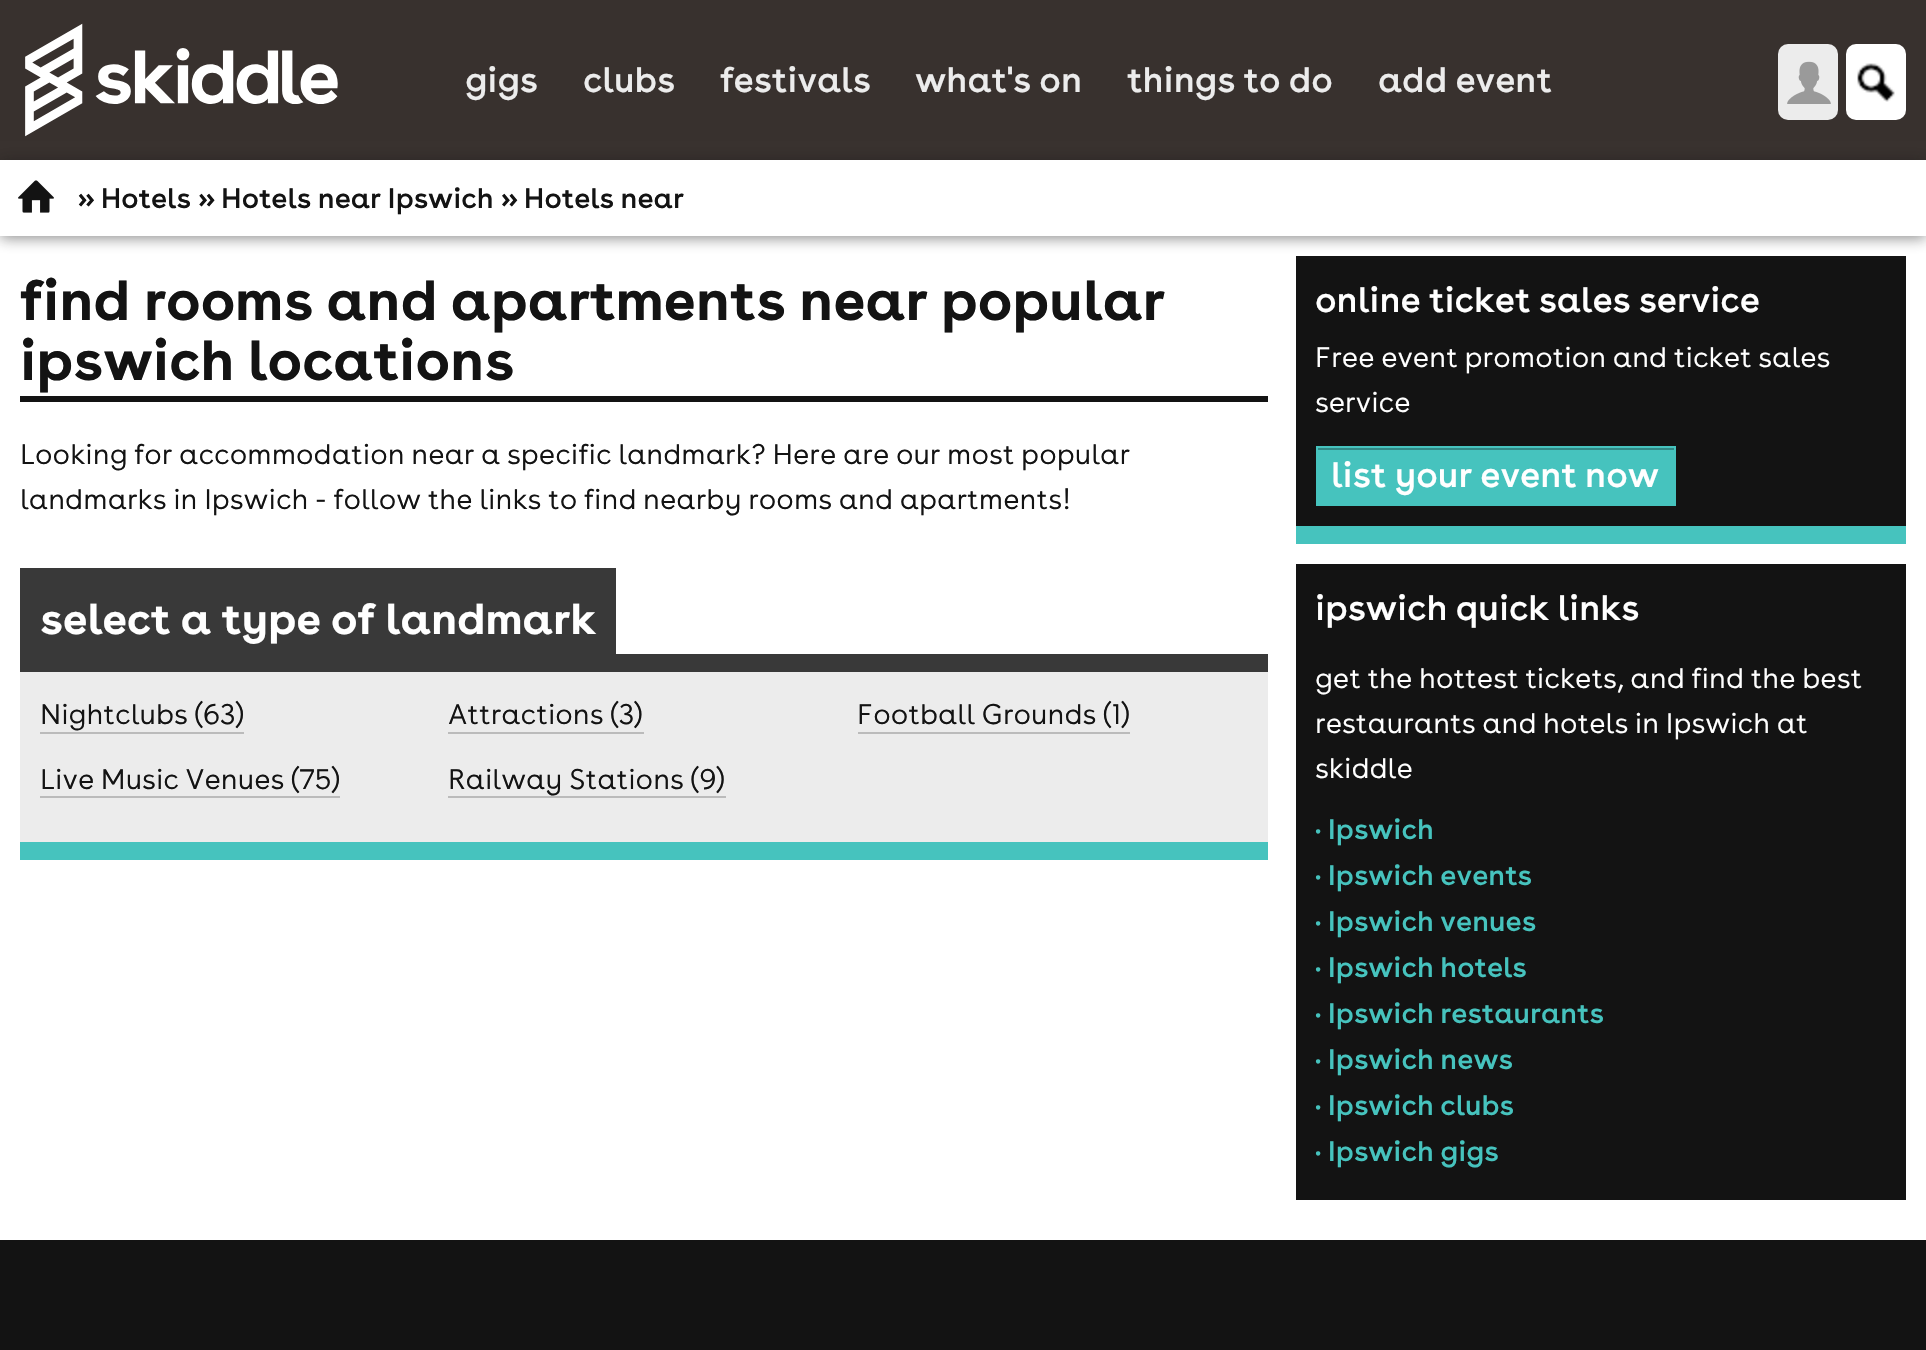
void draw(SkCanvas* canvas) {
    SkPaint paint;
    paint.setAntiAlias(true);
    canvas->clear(0xFFFFFFFF);
    paint.setColor(0xFF38312E);
    canvas->drawRect(SkRect::MakeXYWH(0, 0, 1926, 160), paint);
    canvas->drawImageRect(SkImages::DeferredFromEncodedData(SkData::MakeFromFileName("img1.png")), SkRect::MakeXYWH(25, 23, 313, 114), SkSamplingOptions());
    SkFont font1(fontMgr->matchFamilyStyle("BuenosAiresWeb", SkFontStyle::Normal()), 37.5f);
    font1.setSubpixel(true);
    paint.setColor(0xFFECECEC);
    canvas->drawString("gigs", 465, 92, font1, paint);
    canvas->drawString("clubs", 583, 92, font1, paint);
    canvas->drawString("festivals", 720, 92, font1, paint);
    canvas->drawString("what's on", 915, 92, font1, paint);
    canvas->drawString("things to do", 1127, 92, font1, paint);
    canvas->drawString("add event", 1378, 92, font1, paint);
    canvas->drawRoundRect(SkRect::MakeXYWH(1778, 44, 60, 76), 10, 10, paint);
    canvas->drawImageRect(SkImages::DeferredFromEncodedData(SkData::MakeFromFileName("img2.png")), SkRect::MakeXYWH(1787, 61, 44, 43), SkSamplingOptions());
    paint.setColor(0xFFFFFFFF);
    canvas->drawRoundRect(SkRect::MakeXYWH(1846, 44, 60, 76), 10, 10, paint);
    canvas->drawImageRect(SkImages::DeferredFromEncodedData(SkData::MakeFromFileName("img3.png")), SkRect::MakeXYWH(1857, 63, 38, 39), SkSamplingOptions());
    paint.setColor(0xFF131313);
    canvas->drawRect(SkRect::MakeXYWH(20, 396, 1248, 6), paint);
    SkFont font2(fontMgr->matchFamilyStyle("BuenosAiresWeb", SkFontStyle::Bold()), 60);
    font2.setSubpixel(true);
    canvas->drawString("find rooms and apartments near popular", 20, 320, font2, paint);
    canvas->drawString("ipswich locations", 20, 380, font2, paint);
    SkFont font3(fontMgr->matchFamilyStyle("BuenosAiresWeb", SkFontStyle(300, SkFontStyle::kNormal_Width, SkFontStyle::kUpright_Slant)), 30);
    font3.setSubpixel(true);
    canvas->drawString("Looking for accommodation near a specific landmark? Here are our most popular", 20, 464, font3, paint);
    canvas->drawString("landmarks in Ipswich - follow the links to find nearby rooms and apartments!", 20, 509, font3, paint);
    paint.setColor(0xFF393939);
    canvas->drawRect(SkRect::MakeXYWH(20, 654, 1248, 18), paint);
    canvas->drawRect(SkRect::MakeXYWH(20, 568, 596, 86), paint);
    SkFont font4(fontMgr->matchFamilyStyle("BuenosAiresWeb", SkFontStyle::Bold()), 46);
    font4.setSubpixel(true);
    paint.setColor(0xFFFFFFFF);
    canvas->drawString("select a type of landmark", 40, 634, font4, paint);
    paint.setColor(0xFFECECEC);
    canvas->drawRect(SkRect::MakeXYWH(20, 672, 1248, 170), paint);
    paint.setColor(0xFF46C3BE);
    canvas->drawRect(SkRect::MakeXYWH(20, 842, 1248, 18), paint);
    paint.setColor(0xFF131313);
    canvas->drawString("Nightclubs (63)", 40, 724, font3, paint);
    paint.setColor(0xFFBBBBBB);
    canvas->drawRect(SkRect::MakeXYWH(40, 732, 204, 2), paint);
    paint.setColor(0xFF131313);
    canvas->drawString("Attractions (3)", 448, 724, font3, paint);
    paint.setColor(0xFFBBBBBB);
    canvas->drawRect(SkRect::MakeXYWH(448, 732, 196, 2), paint);
    paint.setColor(0xFF131313);
    canvas->drawString("Football Grounds (1)", 857, 724, font3, paint);
    paint.setColor(0xFFBBBBBB);
    canvas->drawRect(SkRect::MakeXYWH(858, 732, 272, 2), paint);
    paint.setColor(0xFF131313);
    canvas->drawString("Live Music Venues (75)", 40, 789, font3, paint);
    paint.setColor(0xFFBBBBBB);
    canvas->drawRect(SkRect::MakeXYWH(40, 796, 300, 2), paint);
    paint.setColor(0xFF131313);
    canvas->drawString("Railway Stations (9)", 448, 789, font3, paint);
    paint.setColor(0xFFBBBBBB);
    canvas->drawRect(SkRect::MakeXYWH(448, 796, 278, 2), paint);
    paint.setColor(0xFF131313);
    canvas->drawRect(SkRect::MakeXYWH(1296, 256, 610, 270), paint);
    paint.setColor(0xFF46C3BE);
    canvas->drawRect(SkRect::MakeXYWH(1296, 526, 610, 18), paint);
    paint.setColor(0xFFFFFFFF);
    canvas->drawString("online ticket sales service", 1315, 312, font1, paint);
    canvas->drawString("Free event promotion and ticket sales", 1315, 367, font3, paint);
    canvas->drawString("service", 1315, 412, font3, paint);
    paint.setColor(0xFF46C3BE);
    canvas->drawRect(SkRect::MakeXYWH(1316, 446, 360, 60), paint);
    paint.setColor(0xFF318985);
    canvas->drawRect(SkRect::MakeXYWH(1318, 448, 356, 2), paint);
    paint.setColor(0xFFFFFFFF);
    canvas->drawString("list your event now", 1331, 487, font1, paint);
    paint.setColor(0xFF131313);
    canvas->drawRect(SkRect::MakeXYWH(1296, 564, 610, 636), paint);
    paint.setColor(0xFFFFFFFF);
    canvas->drawString("ipswich quick links", 1315, 620, font1, paint);
    canvas->drawString("get the hottest tickets, and find the best", 1315, 688, font3, paint);
    canvas->drawString("restaurants and hotels in Ipswich at", 1315, 733, font3, paint);
    canvas->drawString("skiddle", 1315, 778, font3, paint);
    SkFont font5(fontMgr->matchFamilyStyle("BuenosAiresWeb", SkFontStyle::Normal()), 30);
    font5.setSubpixel(true);
    paint.setColor(0xFF46C3BE);
    canvas->drawString("• Ipswich", 1315, 839, font5, paint);
    canvas->drawString("• Ipswich events", 1315, 885, font5, paint);
    canvas->drawString("• Ipswich venues", 1315, 931, font5, paint);
    canvas->drawString("• Ipswich hotels", 1315, 977, font5, paint);
    canvas->drawString("• Ipswich restaurants", 1315, 1023, font5, paint);
    canvas->drawString("• Ipswich news", 1315, 1069, font5, paint);
    canvas->drawString("• Ipswich clubs", 1315, 1115, font5, paint);
    canvas->drawString("• Ipswich gigs", 1315, 1161, font5, paint);
    canvas->save();
    canvas->clipPath(SkPathBuilder(SkPathFillType::kEvenOdd).moveTo(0, 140).lineTo(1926, 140).lineTo(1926, 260).lineTo(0, 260).close().moveTo(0, 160).lineTo(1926, 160).lineTo(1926, 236).lineTo(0, 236).close().detach(), true);
    paint.setColor(0x80131313);
    paint.setMaskFilter(SkMaskFilter::MakeBlur(kNormal_SkBlurStyle, 7));
    canvas->drawRect(SkRect::MakeXYWH(0, 162, 1926, 76), paint);
    paint.setMaskFilter(nullptr);
    canvas->restore();
    canvas->drawImageRect(SkImages::DeferredFromEncodedData(SkData::MakeFromFileName("img4.png")), SkRect::MakeXYWH(18, 180, 36, 33), SkSamplingOptions());
    paint.setColor(0xFF131313);
    canvas->drawString("» Hotels » Hotels near Ipswich » Hotels near", 77, 208, font5, paint);
    canvas->drawRect(SkRect::MakeXYWH(0, 1240, 1926, 110), paint);
}
